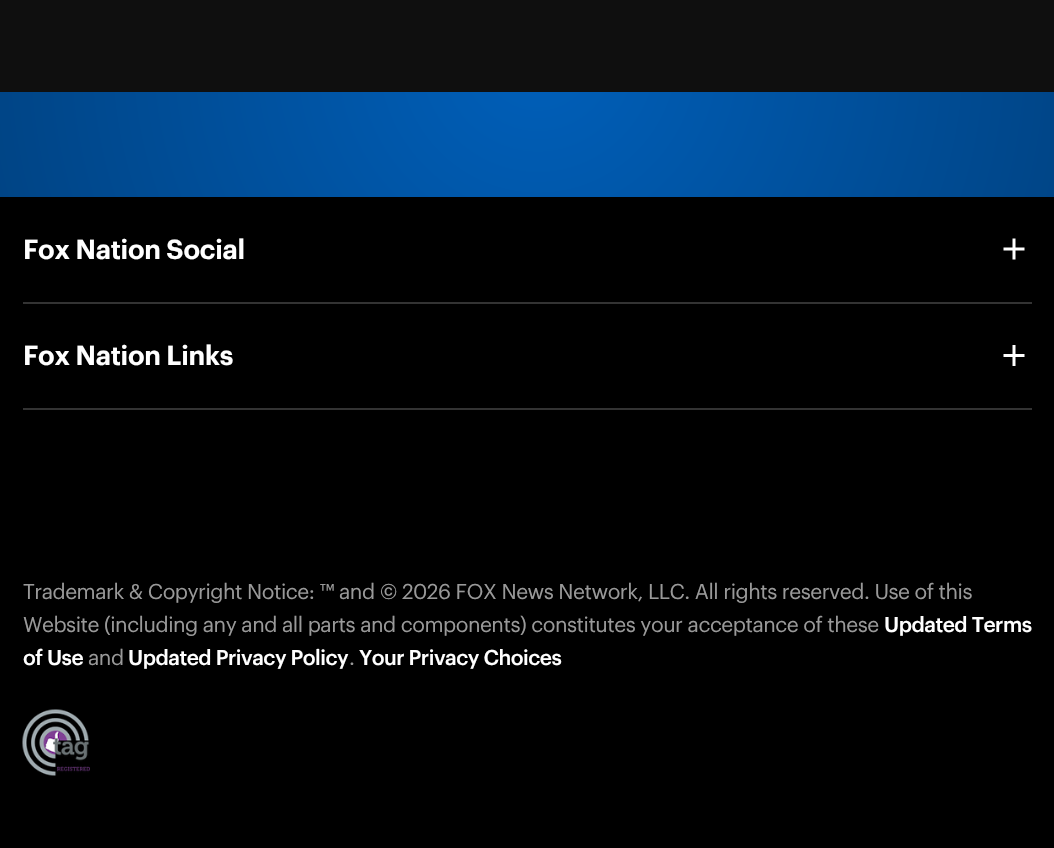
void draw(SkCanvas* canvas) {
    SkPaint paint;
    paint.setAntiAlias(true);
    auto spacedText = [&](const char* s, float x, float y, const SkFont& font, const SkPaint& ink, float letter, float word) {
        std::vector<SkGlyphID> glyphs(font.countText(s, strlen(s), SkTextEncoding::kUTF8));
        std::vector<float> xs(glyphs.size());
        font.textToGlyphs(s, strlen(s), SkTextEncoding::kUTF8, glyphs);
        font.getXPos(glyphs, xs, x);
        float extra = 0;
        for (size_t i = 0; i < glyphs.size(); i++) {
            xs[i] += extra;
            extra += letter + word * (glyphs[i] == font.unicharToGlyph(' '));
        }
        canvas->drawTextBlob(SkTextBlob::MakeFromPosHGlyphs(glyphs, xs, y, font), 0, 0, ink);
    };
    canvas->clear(0xFF000000);
    paint.setColor(0xFF0F0F0F);
    canvas->drawRect(SkRect::MakeXYWH(0, 0, 1054, 92), paint);
    {
        const SkColor colors[] = {0xFF005FB9, 0xFF004485};
        const float stops[] = {0.01f, 1};
        paint.setShader(SkGradientShader::MakeRadial({538, 54}, 558, colors, stops, 2, SkTileMode::kClamp));
        paint.setAlpha(255);
    }
    canvas->drawRect(SkRect::MakeXYWH(0, 92, 1054, 105), paint);
    paint.setShader(nullptr);
    paint.setColor(0xFF333333);
    canvas->drawRect(SkRect::MakeXYWH(23, 302, 1009, 2), paint);
    SkFont font1(fontMgr->matchFamilyStyle("Graphik", SkFontStyle(600, SkFontStyle::kNormal_Width, SkFontStyle::kUpright_Slant)), 27);
    font1.setSubpixel(true);
    paint.setColor(0xFFFFFFFF);
    spacedText("Fox Nation Social", 23, 259, font1, paint, -0.25f, 0);
    canvas->drawImageRect(SkImages::DeferredFromEncodedData(SkData::MakeFromFileName("img1.png")), SkRect::MakeXYWH(1003, 238, 22, 22), SkSamplingOptions());
    paint.setColor(0xFF333333);
    canvas->drawRect(SkRect::MakeXYWH(23, 408, 1009, 2), paint);
    paint.setColor(0xFFFFFFFF);
    spacedText("Fox Nation Links", 23, 365, font1, paint, -0.25f, 0);
    canvas->drawImageRect(SkImages::DeferredFromEncodedData(SkData::MakeFromFileName("img2.png")), SkRect::MakeXYWH(1003, 345, 22, 21), SkSamplingOptions());
    SkFont font2(fontMgr->matchFamilyStyle("Graphik", SkFontStyle::Normal()), 21);
    font2.setSubpixel(true);
    paint.setColor(0xFF999999);
    spacedText("Trademark & Copyright Notice: ™ and © 2026 FOX News Network, LLC. All rights reserved. Use of this", 23, 599, font2, paint, -0.5f, 0);
    spacedText("Website (including any and all parts and components) constitutes your acceptance of these", 23, 632, font2, paint, -0.5f, 0);
    SkFont font3(fontMgr->matchFamilyStyle("Graphik", SkFontStyle(500, SkFontStyle::kNormal_Width, SkFontStyle::kUpright_Slant)), 21);
    font3.setSubpixel(true);
    paint.setColor(0xFFFFFFFF);
    spacedText("Updated Terms", 884, 632, font3, paint, -0.5f, 0);
    spacedText("of Use", 23, 665, font3, paint, -0.5f, 0);
    paint.setColor(0xFF999999);
    spacedText("and", 88, 665, font2, paint, -0.5f, 0);
    paint.setColor(0xFFFFFFFF);
    spacedText("Updated Privacy Policy", 128, 665, font3, paint, -0.5f, 0);
    paint.setColor(0xFF999999);
    spacedText(".", 349, 665, font2, paint, -0.5f, 0);
    paint.setColor(0xFFFFFFFF);
    spacedText("Your Privacy Choices", 359, 665, font3, paint, -0.5f, 0);
    canvas->drawImageRect(SkImages::DeferredFromEncodedData(SkData::MakeFromFileName("img3.png")), SkRect::MakeXYWH(22, 709, 68, 67), SkSamplingOptions());
}
